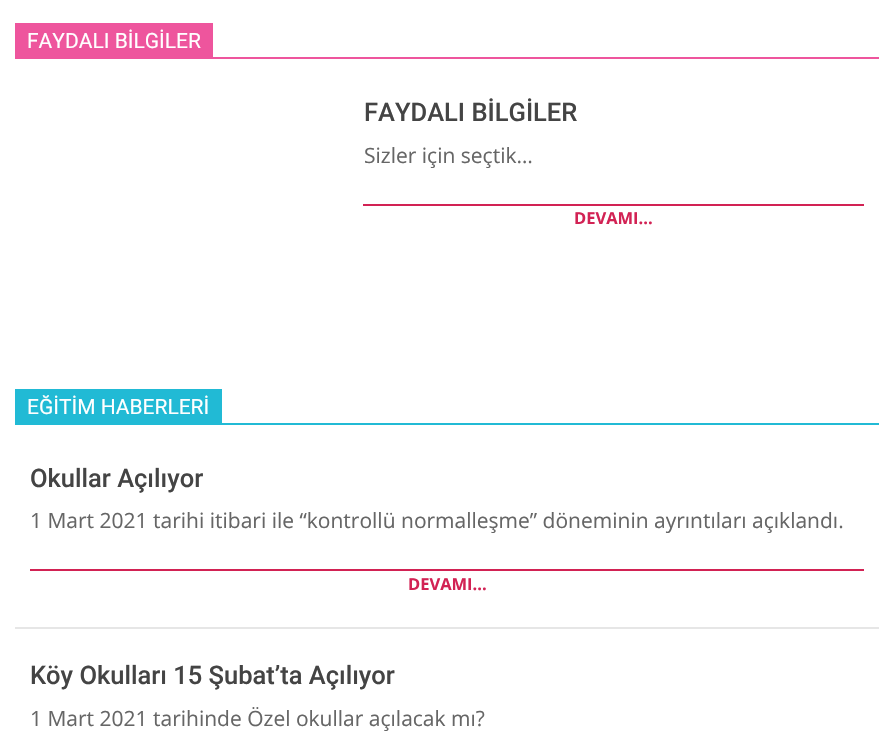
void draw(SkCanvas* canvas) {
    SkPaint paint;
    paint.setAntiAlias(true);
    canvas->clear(0xFFFFFFFF);
    paint.setColor(0xFFEE559D);
    canvas->drawRect(SkRect::MakeXYWH(15, 23, 198, 34), paint);
    SkFont font1(fontMgr->matchFamilyStyle("Roboto", SkFontStyle::Normal()), 21);
    font1.setSubpixel(true);
    paint.setColor(0xFFFFFFFF);
    canvas->drawString("FAYDALI BİLGİLER", 27, 48, font1, paint);
    paint.setColor(0xFFEE559D);
    canvas->drawRect(SkRect::MakeXYWH(15, 57, 864, 2), paint);
    SkFont font2(fontMgr->matchFamilyStyle("Roboto", SkFontStyle(500, SkFontStyle::kNormal_Width, SkFontStyle::kUpright_Slant)), 25.5f);
    font2.setSubpixel(true);
    paint.setColor(0xFF444444);
    canvas->drawString("FAYDALI BİLGİLER", 364, 121, font2, paint);
    SkFont font3(fontMgr->matchFamilyStyle("Open Sans", SkFontStyle::Normal()), 21);
    font3.setSubpixel(true);
    paint.setColor(0xFF666666);
    canvas->drawString("Sizler için seçtik…", 364, 163, font3, paint);
    paint.setColor(0xFFD22254);
    canvas->drawRect(SkRect::MakeXYWH(363, 204, 501, 2), paint);
    SkFont font4(fontMgr->matchFamilyStyle("Open Sans", SkFontStyle::Bold()), 16.5f);
    font4.setSubpixel(true);
    canvas->drawString("DEVAMI...", 574, 224, font4, paint);
    paint.setColor(0xFF21BAD5);
    canvas->drawRect(SkRect::MakeXYWH(15, 389, 207, 34), paint);
    paint.setColor(0xFFFFFFFF);
    canvas->drawString("EĞİTİM HABERLERİ", 27, 414, font1, paint);
    paint.setColor(0xFF21BAD5);
    canvas->drawRect(SkRect::MakeXYWH(15, 423, 864, 2), paint);
    paint.setColor(0xFF444444);
    canvas->drawString("Okullar Açılıyor", 30, 487, font2, paint);
    paint.setColor(0xFF666666);
    canvas->drawString("1 Mart 2021 tarihi itibari ile “kontrollü normalleşme” döneminin ayrıntıları açıklandı.", 30, 528, font3, paint);
    paint.setColor(0xFFD22254);
    canvas->drawRect(SkRect::MakeXYWH(30, 569, 834, 2), paint);
    canvas->drawString("DEVAMI...", 408, 590, font4, paint);
    paint.setColor(0xFFE6E6E6);
    canvas->drawRect(SkRect::MakeXYWH(15, 627, 864, 2), paint);
    paint.setColor(0xFF444444);
    canvas->drawString("Köy Okulları 15 Şubat’ta Açılıyor", 30, 684, font2, paint);
    paint.setColor(0xFF666666);
    canvas->drawString("1 Mart 2021 tarihinde Özel okullar açılacak mı?", 30, 726, font3, paint);
}
